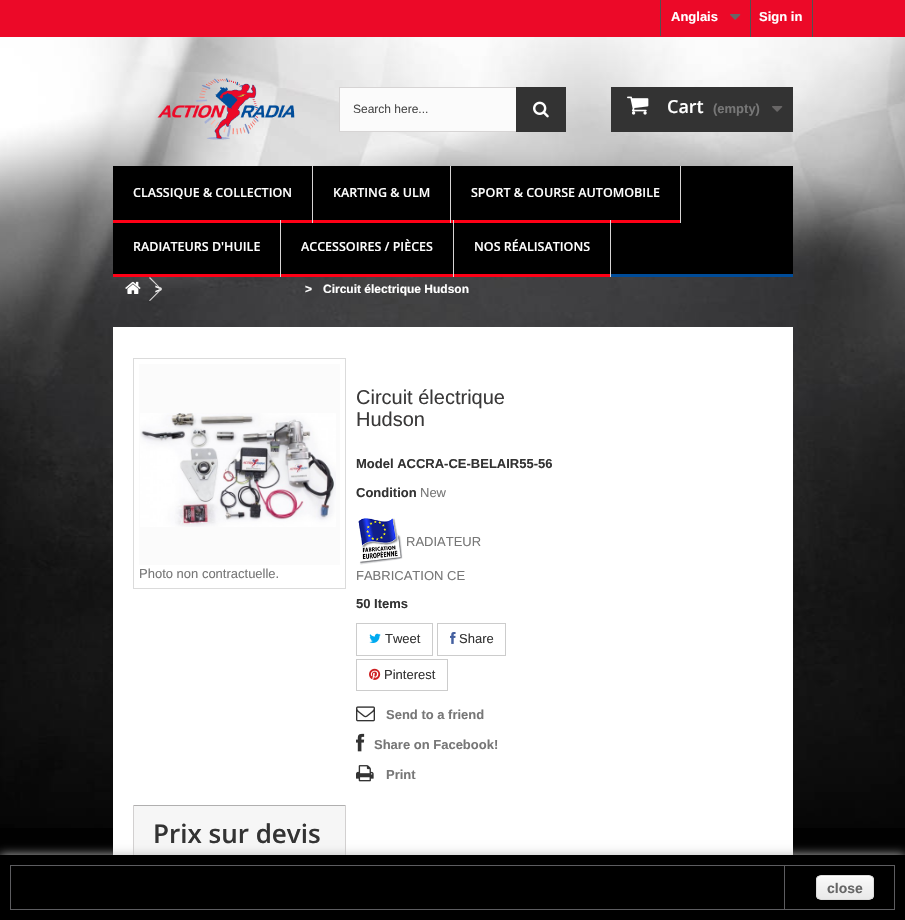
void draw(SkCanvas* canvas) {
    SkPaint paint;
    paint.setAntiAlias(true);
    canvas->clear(0xFF010101);
    canvas->drawImageRect(SkImages::DeferredFromEncodedData(SkData::MakeFromFileName("img1.png")), SkRect::MakeXYWH(0, 37, 905, 791), SkSamplingOptions());
    paint.setColor(0xFFEC0928);
    canvas->drawRect(SkRect::MakeXYWH(0, 0, 905, 37), paint);
    paint.setColor(0xFF515151);
    canvas->drawRect(SkRect::MakeXYWH(660, 0, 1, 36), paint);
    SkFont font1(fontMgr->matchFamilyStyle("Liberation Sans", SkFontStyle::Bold()), 13);
    font1.setSubpixel(true);
    paint.setColor(0xFFFFFFFF);
    canvas->drawString("Anglais", 671, 21, font1, paint);
    canvas->drawImageRect(SkImages::DeferredFromEncodedData(SkData::MakeFromFileName("img2.png")), SkRect::MakeXYWH(730, 14, 11, 6), SkSamplingOptions());
    paint.setColor(0xFF515151);
    canvas->drawRect(SkRect::MakeXYWH(812, 0, 1, 37), paint);
    canvas->drawRect(SkRect::MakeXYWH(750, 0, 1, 37), paint);
    paint.setColor(0xFFFFFFFF);
    canvas->drawString("Sign in", 759, 21, font1, paint);
    canvas->drawImageRect(SkImages::DeferredFromEncodedData(SkData::MakeFromFileName("img3.png")), SkRect::MakeXYWH(157, 78, 138, 62), SkSamplingOptions());
    paint.setColor(0xFFFBFBFB);
    canvas->drawRect(SkRect::MakeXYWH(340, 88, 176, 43), paint);
    paint.setStyle(SkPaint::kStroke_Style);
    paint.setStrokeWidth(1);
    paint.setColor(0xFFD6D4D4);
    canvas->drawRect(SkRect::MakeXYWH(339.5f, 87.5f, 226, 44), paint);
    SkFont font2(fontMgr->matchFamilyStyle("Liberation Sans", SkFontStyle::Normal()), 12);
    font2.setSubpixel(true);
    paint.setStyle(SkPaint::kFill_Style);
    paint.setColor(0xFF484848);
    canvas->drawString("Search here...", 353, 113, font2, paint);
    paint.setColor(0xFF333333);
    canvas->drawRect(SkRect::MakeXYWH(516, 87, 50, 45), paint);
    canvas->drawImageRect(SkImages::DeferredFromEncodedData(SkData::MakeFromFileName("img4.png")), SkRect::MakeXYWH(533, 101, 16, 17), SkSamplingOptions());
    canvas->drawRect(SkRect::MakeXYWH(611, 87, 182, 45), paint);
    canvas->drawImageRect(SkImages::DeferredFromEncodedData(SkData::MakeFromFileName("img5.png")), SkRect::MakeXYWH(627, 96, 22, 19), SkSamplingOptions());
    SkFont font3(fontMgr->matchFamilyStyle("Open Sans", SkFontStyle(600, SkFontStyle::kNormal_Width, SkFontStyle::kUpright_Slant)), 18);
    font3.setSubpixel(true);
    paint.setColor(0xFFFFFFFF);
    canvas->drawString("Cart", 667, 113, font3, paint);
    paint.setColor(0xFF777777);
    canvas->drawString("(empty)", 713, 113, font1, paint);
    canvas->drawImageRect(SkImages::DeferredFromEncodedData(SkData::MakeFromFileName("img6.png")), SkRect::MakeXYWH(772, 106, 11, 6), SkSamplingOptions());
    paint.setColor(0xFF000000);
    canvas->drawRect(SkRect::MakeXYWH(113, 166, 680, 108), paint);
    paint.setColor(0xFF004C99);
    canvas->drawRect(SkRect::MakeXYWH(611, 274, 182, 3), paint);
    paint.setColor(0xFFD6D4D4);
    canvas->drawRect(SkRect::MakeXYWH(312, 166, 1, 57), paint);
    paint.setColor(0xFFFF0016);
    canvas->drawRect(SkRect::MakeXYWH(113, 220, 199, 3), paint);
    SkFont font4(fontMgr->matchFamilyStyle("Open Sans", SkFontStyle(600, SkFontStyle::kNormal_Width, SkFontStyle::kUpright_Slant)), 12.5f);
    font4.setSubpixel(true);
    paint.setColor(0xFFFFFFFF);
    canvas->drawString("CLASSIQUE & COLLECTION", 133, 197, font4, paint);
    paint.setColor(0xFFD6D4D4);
    canvas->drawRect(SkRect::MakeXYWH(450, 166, 1, 57), paint);
    paint.setColor(0xFFFF0016);
    canvas->drawRect(SkRect::MakeXYWH(313, 220, 137, 3), paint);
    paint.setColor(0xFFFFFFFF);
    canvas->drawString("KARTING & ULM", 333, 197, font4, paint);
    paint.setColor(0xFFD6D4D4);
    canvas->drawRect(SkRect::MakeXYWH(680, 166, 1, 57), paint);
    paint.setColor(0xFFFF0016);
    canvas->drawRect(SkRect::MakeXYWH(451, 220, 229, 3), paint);
    paint.setColor(0xFFFFFFFF);
    canvas->drawString("SPORT & COURSE AUTOMOBILE", 471, 197, font4, paint);
    paint.setColor(0xFFD6D4D4);
    canvas->drawRect(SkRect::MakeXYWH(280, 220, 1, 57), paint);
    paint.setColor(0xFFFF0016);
    canvas->drawRect(SkRect::MakeXYWH(113, 274, 167, 3), paint);
    paint.setColor(0xFFFFFFFF);
    canvas->drawString("RADIATEURS D'HUILE", 133, 251, font4, paint);
    paint.setColor(0xFFD6D4D4);
    canvas->drawRect(SkRect::MakeXYWH(453, 220, 1, 57), paint);
    paint.setColor(0xFFFF0016);
    canvas->drawRect(SkRect::MakeXYWH(281, 274, 172, 3), paint);
    paint.setColor(0xFFFFFFFF);
    canvas->drawString("ACCESSOIRES / PIÈCES", 301, 251, font4, paint);
    paint.setColor(0xFFD6D4D4);
    canvas->drawRect(SkRect::MakeXYWH(610, 220, 1, 57), paint);
    paint.setColor(0xFFFF0016);
    canvas->drawRect(SkRect::MakeXYWH(454, 274, 156, 3), paint);
    paint.setColor(0xFFFFFFFF);
    canvas->drawString("NOS RÉALISATIONS", 474, 251, font4, paint);
    canvas->drawImageRect(SkImages::DeferredFromEncodedData(SkData::MakeFromFileName("img7.png")), SkRect::MakeXYWH(125, 281, 16, 13), SkSamplingOptions());
    SkFont font5(fontMgr->matchFamilyStyle("Liberation Sans", SkFontStyle::Bold()), 12);
    font5.setSubpixel(true);
    canvas->drawString(">", 155, 293, font5, paint);
    paint.setColor(0xFFD6D4D4);
    canvas->drawPath(SkPathBuilder().moveTo(150, 277).lineTo(161, 288.5f).lineTo(160.5f, 289).lineTo(149, 278).close().moveTo(160.5f, 289).lineTo(161, 290).lineTo(150, 301).lineTo(149, 300.5f).close().detach(), paint);
    paint.setColor(0xFFFFFFFF);
    canvas->drawString("Circuit électrique Hudson", 323, 293, font5, paint);
    canvas->drawString(">", 305, 293, font5, paint);
    canvas->drawRect(SkRect::MakeXYWH(113, 327, 680, 528), paint);
    paint.setStyle(SkPaint::kStroke_Style);
    paint.setColor(0xFFDBDBDB);
    canvas->drawRect(SkRect::MakeXYWH(133.5f, 358.5f, 212, 230), paint);
    paint.setStyle(SkPaint::kFill_Style);
    paint.setColor(0xFFFBFBFB);
    canvas->drawRect(SkRect::MakeXYWH(139, 364, 201, 201), paint);
    canvas->drawImageRect(SkImages::DeferredFromEncodedData(SkData::MakeFromFileName("img8.png")), SkRect::MakeXYWH(140, 413, 196, 114), SkSamplingOptions());
    SkFont font6(fontMgr->matchFamilyStyle("Liberation Sans", SkFontStyle::Normal()), 13);
    font6.setSubpixel(true);
    paint.setColor(0xFF777777);
    canvas->drawString("Photo non contractuelle.", 139, 578, font6, paint);
    SkFont font7(fontMgr->matchFamilyStyle("Liberation Sans", SkFontStyle::Normal()), 20);
    font7.setSubpixel(true);
    paint.setColor(0xFF3A3939);
    canvas->drawString("Circuit électrique", 356, 404, font7, paint);
    canvas->drawString("Hudson", 356, 426, font7, paint);
    paint.setColor(0xFF333333);
    canvas->drawString("Model ACCRA-CE-BELAIR55-56", 356, 468, font1, paint);
    canvas->drawString("Condition", 356, 497, font1, paint);
    paint.setColor(0xFF777777);
    canvas->drawString("New", 420, 497, font6, paint);
    canvas->drawImageRect(SkImages::DeferredFromEncodedData(SkData::MakeFromFileName("img9.png")), SkRect::MakeXYWH(358, 518, 45, 47), SkSamplingOptions());
    canvas->drawString("RADIATEUR", 406, 546, font6, paint);
    canvas->drawString("FABRICATION CE", 356, 580, font6, paint);
    paint.setColor(0xFF333333);
    canvas->drawString("50 Items", 356, 608, font1, paint);
    paint.setStyle(SkPaint::kStroke_Style);
    paint.setColor(0xFFCCCCCC);
    canvas->drawRect(SkRect::MakeXYWH(356.5f, 623.5f, 76, 32), paint);
    canvas->drawImageRect(SkImages::DeferredFromEncodedData(SkData::MakeFromFileName("img10.png")), SkRect::MakeXYWH(369, 633, 12, 10), SkSamplingOptions());
    paint.setStyle(SkPaint::kFill_Style);
    paint.setColor(0xFF333333);
    canvas->drawString("Tweet", 385, 643, font6, paint);
    paint.setStyle(SkPaint::kStroke_Style);
    paint.setColor(0xFFCCCCCC);
    canvas->drawRect(SkRect::MakeXYWH(437.5f, 623.5f, 68, 32), paint);
    canvas->drawImageRect(SkImages::DeferredFromEncodedData(SkData::MakeFromFileName("img11.png")), SkRect::MakeXYWH(450, 632, 6, 12), SkSamplingOptions());
    paint.setStyle(SkPaint::kFill_Style);
    paint.setColor(0xFF333333);
    canvas->drawString("Share", 459, 643, font6, paint);
    paint.setStyle(SkPaint::kStroke_Style);
    paint.setColor(0xFFCCCCCC);
    canvas->drawRect(SkRect::MakeXYWH(356.5f, 659.5f, 91, 31), paint);
    canvas->drawImageRect(SkImages::DeferredFromEncodedData(SkData::MakeFromFileName("img12.png")), SkRect::MakeXYWH(369, 668, 12, 12), SkSamplingOptions());
    paint.setStyle(SkPaint::kFill_Style);
    paint.setColor(0xFF333333);
    canvas->drawString("Pinterest", 384, 679, font6, paint);
    canvas->drawImageRect(SkImages::DeferredFromEncodedData(SkData::MakeFromFileName("img13.png")), SkRect::MakeXYWH(356, 706, 19, 16), SkSamplingOptions());
    paint.setColor(0xFF777777);
    canvas->drawString("Send to a friend", 386, 719, font1, paint);
    canvas->drawImageRect(SkImages::DeferredFromEncodedData(SkData::MakeFromFileName("img14.png")), SkRect::MakeXYWH(356, 733, 9, 19), SkSamplingOptions());
    canvas->drawString("Share on Facebook!", 374, 749, font1, paint);
    canvas->drawImageRect(SkImages::DeferredFromEncodedData(SkData::MakeFromFileName("img15.png")), SkRect::MakeXYWH(356, 765, 18, 17), SkSamplingOptions());
    canvas->drawString("Print", 386, 779, font1, paint);
    paint.setColor(0xFFF6F6F6);
    canvas->drawRect(SkRect::MakeXYWH(134, 806, 211, 49), paint);
    paint.setColor(0xFFB0AFAF);
    canvas->drawRect(SkRect::MakeXYWH(133, 805, 213, 1), paint);
    paint.setColor(0xFFD2D0D0);
    canvas->drawRect(SkRect::MakeXYWH(345, 805, 1, 50), paint);
    canvas->drawRect(SkRect::MakeXYWH(133, 805, 1, 50), paint);
    SkFont font8(fontMgr->matchFamilyStyle("Open Sans", SkFontStyle(600, SkFontStyle::kNormal_Width, SkFontStyle::kUpright_Slant)), 26);
    font8.setSubpixel(true);
    paint.setColor(0xFF333333);
    canvas->drawString("Prix sur devis", 153, 843, font8, paint);
    paint.setColor(0xFFBDBDBD);
    paint.setMaskFilter(SkMaskFilter::MakeBlur(kNormal_SkBlurStyle, 5));
    canvas->drawRect(SkRect::MakeXYWH(0, 855, 905, 65), paint);
    paint.setMaskFilter(nullptr);
    paint.setColor(0xFF000000);
    canvas->drawRect(SkRect::MakeXYWH(0, 855, 905, 65), paint);
    paint.setColor(0xFF5D5D60);
    canvas->drawRect(SkRect::MakeXYWH(10, 865, 885, 1), paint);
    canvas->drawRect(SkRect::MakeXYWH(894, 865, 1, 45), paint);
    canvas->drawRect(SkRect::MakeXYWH(10, 909, 885, 1), paint);
    canvas->drawRect(SkRect::MakeXYWH(10, 865, 1, 45), paint);
    canvas->drawRect(SkRect::MakeXYWH(784, 865, 1, 45), paint);
    canvas->save();
    canvas->clipPath(SkPathBuilder().moveTo(821, 875).lineTo(869, 875).cubicTo(872, 875, 874, 877, 874, 880).lineTo(874, 895).cubicTo(874, 898, 872, 900, 869, 900).lineTo(821, 900).cubicTo(818, 900, 816, 898, 816, 895).lineTo(816, 880).cubicTo(816, 877, 818, 875, 821, 875).close().detach(), true);
    {
        const SkColor colors[] = {0xFFF9F9F9, 0xFFE9E9E9};
        const float stops[] = {0.05f, 1};
        const SkPoint ends[] = {{817, 876}, {817, 899}};
        paint.setShader(SkGradientShader::MakeLinear(ends, colors, stops, 2, SkTileMode::kClamp));
        paint.setAlpha(255);
    }
    canvas->drawRect(SkRect::MakeXYWH(816, 876, 58, 23), paint);
    canvas->restore();
    paint.setShader(nullptr);
    paint.setColor(0xFFFFFFFF);
    canvas->drawPath(SkPathBuilder().moveTo(821, 877).lineTo(869, 877).cubicTo(871, 877, 873, 879, 873, 881).cubicTo(873, 874, 866, 876, 861, 876).lineTo(829, 876).cubicTo(824, 876, 817, 874, 817, 881).cubicTo(817, 879, 819, 877, 821, 877).close().detach(), paint);
    paint.setStyle(SkPaint::kStroke_Style);
    paint.setColor(0xFFDCDCDC);
    canvas->drawRoundRect(SkRect::MakeXYWH(816.5f, 875.5f, 57, 24), 4.5f, 4.5f, paint);
    SkFont font9(fontMgr->matchFamilyStyle("Liberation Sans", SkFontStyle::Bold()), 14);
    font9.setSubpixel(true);
    paint.setStyle(SkPaint::kFill_Style);
    paint.setColor(0xFF666666);
    canvas->drawString("close", 827, 893, font9, paint);
}
